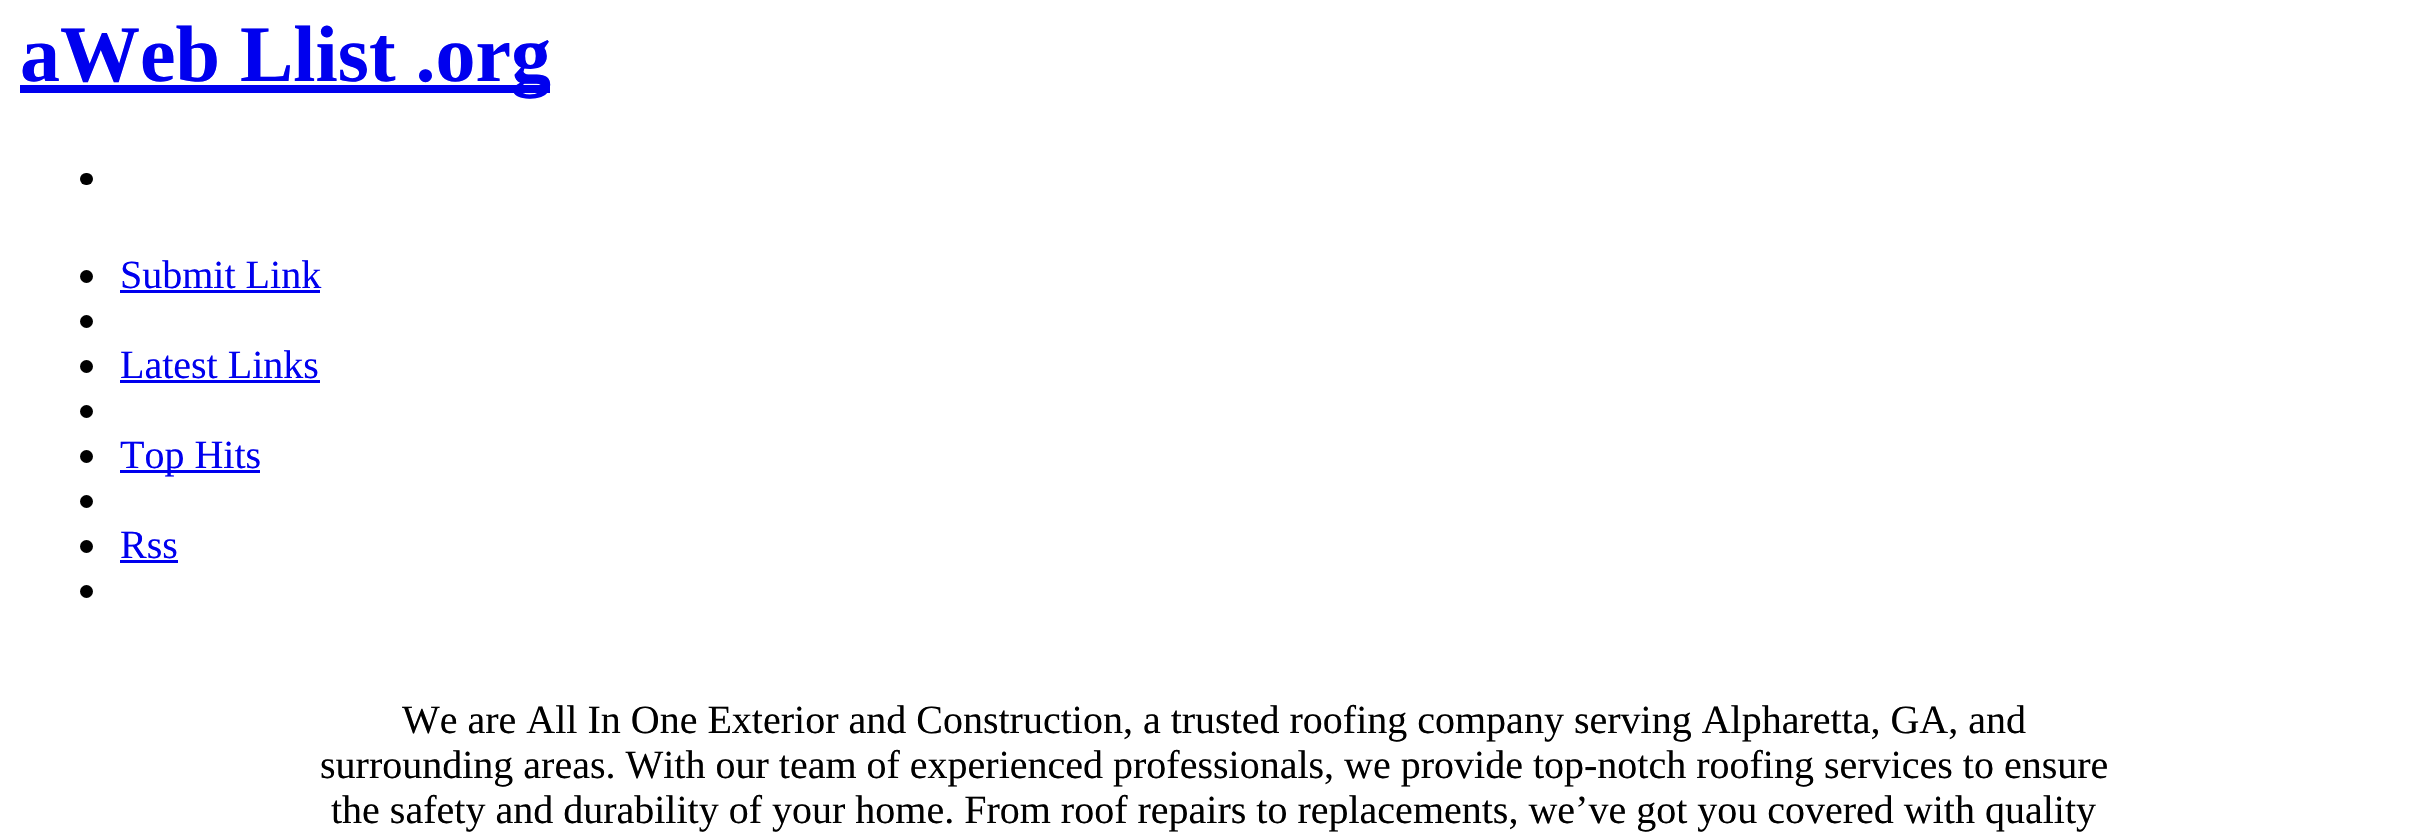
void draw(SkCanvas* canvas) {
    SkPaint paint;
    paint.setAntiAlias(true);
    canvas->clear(0xFFFFFFFF);
    paint.setColor(0xFF0000EE);
    canvas->drawRect(SkRect::MakeXYWH(20, 85, 530, 8), paint);
    SkFont font1(fontMgr->matchFamilyStyle("Liberation Serif", SkFontStyle::Bold()), 80);
    font1.setSubpixel(true);
    canvas->drawString("aWeb Llist .org", 20, 81, font1, paint);
    paint.setColor(0xFF000000);
    canvas->drawRoundRect(SkRect::MakeXYWH(80, 173, 13, 12), 6, 6, paint);
    canvas->drawCircle(86.5f, 276.5f, 6.5f, paint);
    SkFont font2(fontMgr->matchFamilyStyle("Liberation Serif", SkFontStyle::Normal()), 40);
    font2.setSubpixel(true);
    paint.setColor(0xFF0000EE);
    canvas->drawString("Submit Link", 120, 288, font2, paint);
    canvas->drawRect(SkRect::MakeXYWH(120, 290, 200, 3), paint);
    paint.setColor(0xFF000000);
    canvas->drawCircle(86.5f, 321.5f, 6.5f, paint);
    canvas->drawCircle(86.5f, 366.5f, 6.5f, paint);
    paint.setColor(0xFF0000EE);
    canvas->drawString("Latest Links", 120, 378, font2, paint);
    canvas->drawRect(SkRect::MakeXYWH(120, 380, 200, 3), paint);
    paint.setColor(0xFF000000);
    canvas->drawCircle(86.5f, 411.5f, 6.5f, paint);
    canvas->drawCircle(86.5f, 456.5f, 6.5f, paint);
    paint.setColor(0xFF0000EE);
    canvas->drawRect(SkRect::MakeXYWH(120, 470, 140, 3), paint);
    canvas->drawString("Top Hits", 120, 468, font2, paint);
    paint.setColor(0xFF000000);
    canvas->drawCircle(86.5f, 501.5f, 6.5f, paint);
    canvas->drawCircle(86.5f, 546.5f, 6.5f, paint);
    paint.setColor(0xFF0000EE);
    canvas->drawString("Rss", 120, 558, font2, paint);
    canvas->drawRect(SkRect::MakeXYWH(120, 560, 58, 3), paint);
    paint.setColor(0xFF000000);
    canvas->drawCircle(86.5f, 591.5f, 6.5f, paint);
    canvas->drawString("We are All In One Exterior and Construction, a trusted roofing company serving Alpharetta, GA, and", 402, 733, font2, paint);
    canvas->drawString("surrounding areas. With our team of experienced professionals, we provide top-notch roofing services to ensure", 320, 778, font2, paint);
    canvas->drawString("the safety and durability of your home. From roof repairs to replacements, we’ve got you covered with quality", 331, 823, font2, paint);
}
